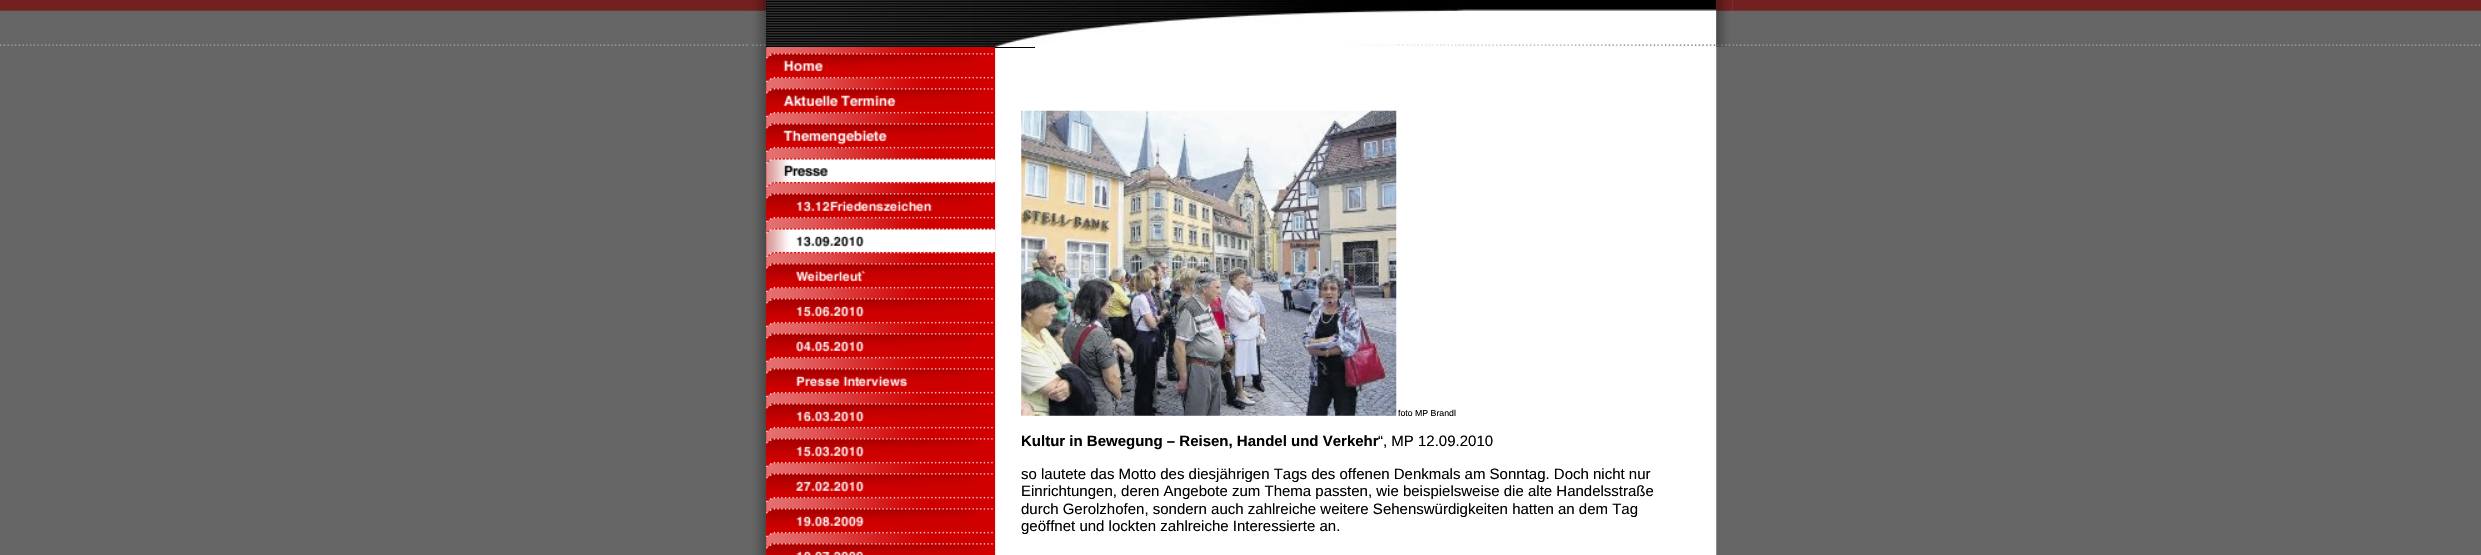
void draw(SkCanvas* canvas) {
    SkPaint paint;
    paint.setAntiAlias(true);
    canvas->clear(0xFF666666);
    canvas->drawImageRect(SkImages::DeferredFromEncodedData(SkData::MakeFromFileName("img1.png")), SkRect::MakeXYWH(0, 0, 2481, 46), SkSamplingOptions());
    paint.setColor(0xFF666666);
    canvas->drawRect(SkRect::MakeXYWH(1716, 0, 17, 46), paint);
    canvas->drawImageRect(SkImages::DeferredFromEncodedData(SkData::MakeFromFileName("img2.png")), SkRect::MakeXYWH(1716, 0, 17, 46), SkSamplingOptions());
    canvas->drawImageRect(SkImages::DeferredFromEncodedData(SkData::MakeFromFileName("img3.png")), SkRect::MakeXYWH(750, 47, 16, 508), SkSamplingOptions());
    canvas->drawImageRect(SkImages::DeferredFromEncodedData(SkData::MakeFromFileName("img6.png")), SkRect::MakeXYWH(995, 0, 722, 555), SkSamplingOptions());
    paint.setColor(0xFF000000);
    canvas->drawRect(SkRect::MakeXYWH(766, 0, 269, 48), paint);
    canvas->drawImageRect(SkImages::DeferredFromEncodedData(SkData::MakeFromFileName("img4.png")), SkRect::MakeXYWH(750, 0, 17, 47), SkSamplingOptions());
    canvas->drawImageRect(SkImages::DeferredFromEncodedData(SkData::MakeFromFileName("img7.png")), SkRect::MakeXYWH(1716, 0, 1, 47), SkSamplingOptions());
    canvas->drawImageRect(SkImages::DeferredFromEncodedData(SkData::MakeFromFileName("img9.png")), SkRect::MakeXYWH(1035, 0, 682, 47), SkSamplingOptions());
    canvas->drawImageRect(SkImages::DeferredFromEncodedData(SkData::MakeFromFileName("img5.png")), SkRect::MakeXYWH(1716, 0, 17, 47), SkSamplingOptions());
    canvas->drawImageRect(SkImages::DeferredFromEncodedData(SkData::MakeFromFileName("img8.png")), SkRect::MakeXYWH(766, 0, 269, 47), SkSamplingOptions());
    paint.setColor(0xFFD10000);
    canvas->drawRect(SkRect::MakeXYWH(766, 48, 229, 507), paint);
    canvas->drawImageRect(SkImages::DeferredFromEncodedData(SkData::MakeFromFileName("img10.png")), SkRect::MakeXYWH(766, 47, 229, 35), SkSamplingOptions());
    canvas->drawImageRect(SkImages::DeferredFromEncodedData(SkData::MakeFromFileName("img11.png")), SkRect::MakeXYWH(766, 82, 227, 35), SkSamplingOptions());
    canvas->drawImageRect(SkImages::DeferredFromEncodedData(SkData::MakeFromFileName("img12.png")), SkRect::MakeXYWH(766, 117, 227, 35), SkSamplingOptions());
    canvas->drawImageRect(SkImages::DeferredFromEncodedData(SkData::MakeFromFileName("img13.png")), SkRect::MakeXYWH(766, 152, 229, 35), SkSamplingOptions());
    canvas->drawImageRect(SkImages::DeferredFromEncodedData(SkData::MakeFromFileName("img14.png")), SkRect::MakeXYWH(766, 187, 227, 35), SkSamplingOptions());
    canvas->drawImageRect(SkImages::DeferredFromEncodedData(SkData::MakeFromFileName("img15.png")), SkRect::MakeXYWH(766, 222, 229, 35), SkSamplingOptions());
    canvas->drawImageRect(SkImages::DeferredFromEncodedData(SkData::MakeFromFileName("img16.png")), SkRect::MakeXYWH(766, 257, 227, 35), SkSamplingOptions());
    canvas->drawImageRect(SkImages::DeferredFromEncodedData(SkData::MakeFromFileName("img17.png")), SkRect::MakeXYWH(766, 292, 227, 35), SkSamplingOptions());
    canvas->drawImageRect(SkImages::DeferredFromEncodedData(SkData::MakeFromFileName("img18.png")), SkRect::MakeXYWH(766, 327, 227, 35), SkSamplingOptions());
    canvas->drawImageRect(SkImages::DeferredFromEncodedData(SkData::MakeFromFileName("img19.png")), SkRect::MakeXYWH(766, 362, 227, 35), SkSamplingOptions());
    canvas->drawImageRect(SkImages::DeferredFromEncodedData(SkData::MakeFromFileName("img20.png")), SkRect::MakeXYWH(766, 397, 227, 35), SkSamplingOptions());
    canvas->drawImageRect(SkImages::DeferredFromEncodedData(SkData::MakeFromFileName("img21.png")), SkRect::MakeXYWH(766, 432, 227, 35), SkSamplingOptions());
    canvas->drawImageRect(SkImages::DeferredFromEncodedData(SkData::MakeFromFileName("img22.png")), SkRect::MakeXYWH(766, 467, 227, 35), SkSamplingOptions());
    canvas->drawImageRect(SkImages::DeferredFromEncodedData(SkData::MakeFromFileName("img23.png")), SkRect::MakeXYWH(766, 502, 227, 35), SkSamplingOptions());
    canvas->drawImageRect(SkImages::DeferredFromEncodedData(SkData::MakeFromFileName("img24.png")), SkRect::MakeXYWH(766, 537, 227, 18), SkSamplingOptions());
    canvas->drawImageRect(SkImages::DeferredFromEncodedData(SkData::MakeFromFileName("img25.png")), SkRect::MakeXYWH(1021, 110, 376, 306), SkSamplingOptions());
    SkFont font1(fontMgr->matchFamilyStyle("Liberation Sans", SkFontStyle::Normal()), 8.75f);
    font1.setSubpixel(true);
    paint.setColor(0xFF000000);
    canvas->drawString("foto MP Brandl", 1398, 416, font1, paint);
    SkFont font2(fontMgr->matchFamilyStyle("Liberation Sans", SkFontStyle::Bold()), 15);
    font2.setSubpixel(true);
    canvas->drawString("Kultur in Bewegung – Reisen, Handel und Verkehr", 1021, 446, font2, paint);
    SkFont font3(fontMgr->matchFamilyStyle("Liberation Sans", SkFontStyle::Normal()), 15);
    font3.setSubpixel(true);
    canvas->drawString("“, MP 12.09.2010", 1378, 446, font3, paint);
    canvas->drawString("so lautete das Motto des diesjährigen Tags des offenen Denkmals am Sonntag. Doch nicht nur", 1021, 479, font3, paint);
    canvas->drawString("Einrichtungen, deren Angebote zum Thema passten, wie beispielsweise die alte Handelsstraße", 1021, 496, font3, paint);
    canvas->drawString("durch Gerolzhofen, sondern auch zahlreiche weitere Sehenswürdigkeiten hatten an dem Tag", 1021, 514, font3, paint);
    canvas->drawString("geöffnet und lockten zahlreiche Interessierte an.", 1021, 531, font3, paint);
}
